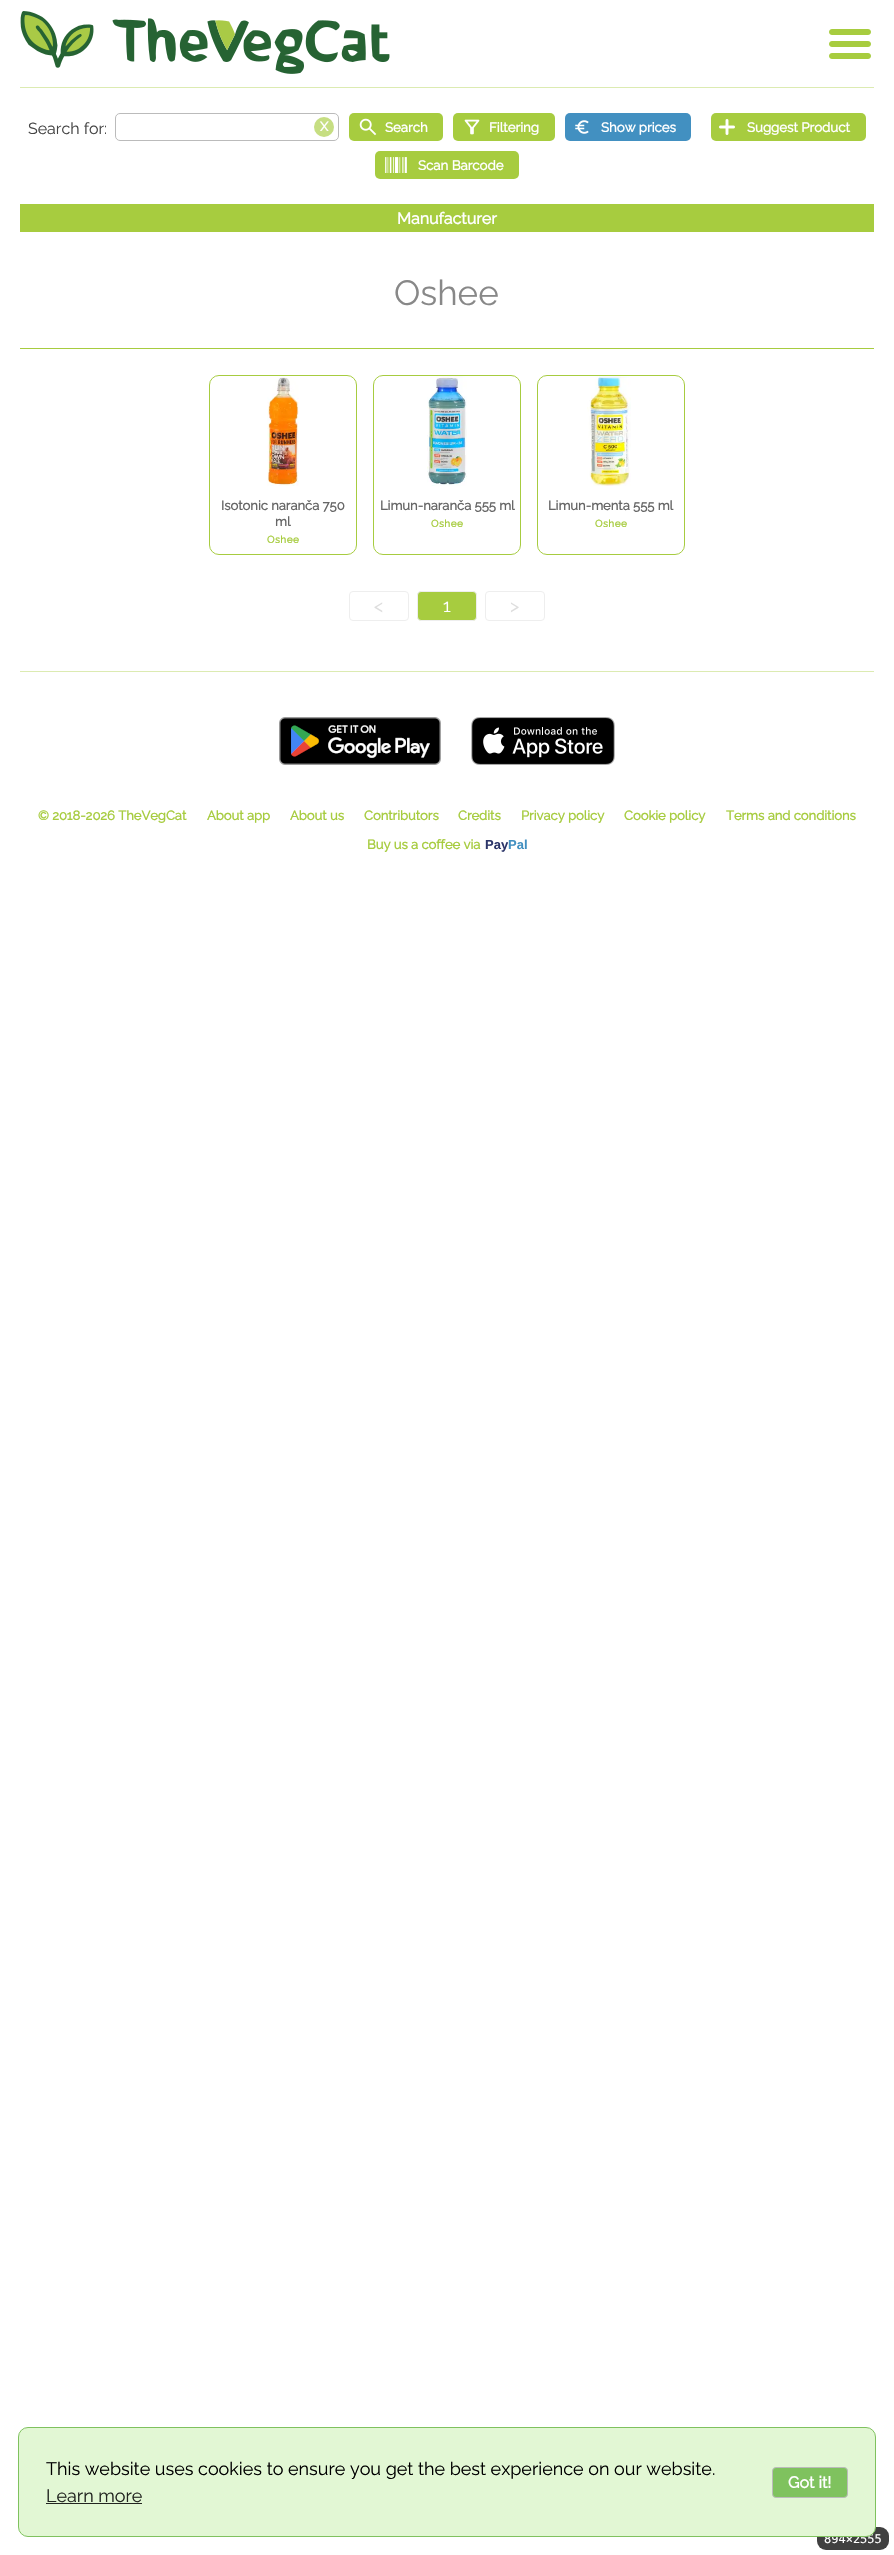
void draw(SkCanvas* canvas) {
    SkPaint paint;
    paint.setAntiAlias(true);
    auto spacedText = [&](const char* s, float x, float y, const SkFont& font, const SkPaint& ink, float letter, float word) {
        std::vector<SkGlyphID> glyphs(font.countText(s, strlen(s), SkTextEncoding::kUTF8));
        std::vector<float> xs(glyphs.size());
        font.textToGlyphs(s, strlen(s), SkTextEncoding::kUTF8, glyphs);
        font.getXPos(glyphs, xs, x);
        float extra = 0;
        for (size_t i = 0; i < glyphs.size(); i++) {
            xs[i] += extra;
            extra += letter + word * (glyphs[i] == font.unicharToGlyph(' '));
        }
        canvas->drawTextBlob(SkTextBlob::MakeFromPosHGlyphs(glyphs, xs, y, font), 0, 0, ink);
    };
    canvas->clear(0xFFFFFFFF);
    paint.setColor(0xFFDCEBB2);
    canvas->drawRect(SkRect::MakeXYWH(20, 87, 854, 1), paint);
    canvas->drawImageRect(SkImages::DeferredFromEncodedData(SkData::MakeFromFileName("img1.png")), SkRect::MakeXYWH(20, 11, 370, 63), SkSamplingOptions());
    canvas->drawImageRect(SkImages::DeferredFromEncodedData(SkData::MakeFromFileName("img2.png")), SkRect::MakeXYWH(829, 29, 42, 30), SkSamplingOptions());
    paint.setStyle(SkPaint::kStroke_Style);
    paint.setStrokeWidth(1);
    paint.setColor(0xFFBBBBBB);
    canvas->drawRoundRect(SkRect::MakeXYWH(115.5f, 113.5f, 223, 27), 4.5f, 4.5f, paint);
    SkFont font1(fontMgr->matchFamilyStyle("Raleway", SkFontStyle(100, SkFontStyle::kNormal_Width, SkFontStyle::kUpright_Slant)), 16);
    font1.setSubpixel(true);
    paint.setStyle(SkPaint::kFill_Style);
    paint.setColor(0xFF444444);
    canvas->drawString("Search for:", 28, 134, font1, paint);
    paint.setColor(0xFFC6DE82);
    canvas->drawCircle(324, 127, 10, paint);
    SkFont font2(fontMgr->matchFamilyStyle("Raleway", SkFontStyle::Bold()), 13);
    font2.setSubpixel(true);
    paint.setColor(0xFFFFFFFF);
    canvas->drawString("X", 320, 131, font2, paint);
    paint.setColor(0xFFA7CC3F);
    canvas->drawRoundRect(SkRect::MakeXYWH(349, 113, 94, 28), 5, 5, paint);
    canvas->drawImageRect(SkImages::DeferredFromEncodedData(SkData::MakeFromFileName("img3.png")), SkRect::MakeXYWH(359, 118, 18, 18), SkSamplingOptions());
    SkFont font3(fontMgr->matchFamilyStyle("Raleway", SkFontStyle::Bold()), 13.25f);
    font3.setSubpixel(true);
    paint.setColor(0xFFFFFFFF);
    canvas->drawString("Search", 385, 132, font3, paint);
    paint.setColor(0xFFA7CC3F);
    canvas->drawRoundRect(SkRect::MakeXYWH(453, 113, 102, 28), 5, 5, paint);
    canvas->drawImageRect(SkImages::DeferredFromEncodedData(SkData::MakeFromFileName("img4.png")), SkRect::MakeXYWH(464, 119, 16, 16), SkSamplingOptions());
    paint.setColor(0xFFFFFFFF);
    canvas->drawString("Filtering", 489, 132, font3, paint);
    paint.setColor(0xFF4290C1);
    canvas->drawRoundRect(SkRect::MakeXYWH(565, 113, 126, 28), 5, 5, paint);
    canvas->drawImageRect(SkImages::DeferredFromEncodedData(SkData::MakeFromFileName("img5.png")), SkRect::MakeXYWH(575, 120, 14, 14), SkSamplingOptions());
    paint.setColor(0xFFFFFFFF);
    canvas->drawString("Show prices", 601, 132, font3, paint);
    paint.setColor(0xFFA7CC3F);
    canvas->drawRoundRect(SkRect::MakeXYWH(711, 113, 155, 28), 5, 5, paint);
    canvas->drawImageRect(SkImages::DeferredFromEncodedData(SkData::MakeFromFileName("img6.png")), SkRect::MakeXYWH(719, 119, 16, 16), SkSamplingOptions());
    paint.setColor(0xFFFFFFFF);
    canvas->drawString("Suggest Product", 747, 132, font3, paint);
    paint.setColor(0xFFA7CC3F);
    canvas->drawRoundRect(SkRect::MakeXYWH(375, 151, 144, 28), 5, 5, paint);
    canvas->drawImageRect(SkImages::DeferredFromEncodedData(SkData::MakeFromFileName("img7.png")), SkRect::MakeXYWH(385, 157, 22, 16), SkSamplingOptions());
    paint.setColor(0xFFFFFFFF);
    canvas->drawString("Scan Barcode", 418, 170, font3, paint);
    paint.setColor(0xFFA7CC3F);
    canvas->drawRect(SkRect::MakeXYWH(20, 204, 854, 28), paint);
    SkFont font4(fontMgr->matchFamilyStyle("Raleway", SkFontStyle::Bold()), 16);
    font4.setSubpixel(true);
    paint.setColor(0xFFFFFFFF);
    canvas->drawString("Manufacturer", 397, 224, font4, paint);
    SkFont font5(fontMgr->matchFamilyStyle("Raleway", SkFontStyle(100, SkFontStyle::kNormal_Width, SkFontStyle::kUpright_Slant)), 35);
    font5.setSubpixel(true);
    paint.setColor(0xFF888888);
    canvas->drawString("Oshee", 394, 305, font5, paint);
    paint.setColor(0xFFA7CC3F);
    canvas->drawRect(SkRect::MakeXYWH(20, 348, 854, 1), paint);
    canvas->drawImageRect(SkImages::DeferredFromEncodedData(SkData::MakeFromFileName("img8.png")), SkRect::MakeXYWH(267, 377, 32, 109), SkSamplingOptions());
    paint.setStyle(SkPaint::kStroke_Style);
    paint.setColor(0xFFA7CC40);
    canvas->drawRoundRect(SkRect::MakeXYWH(209.5f, 375.5f, 147, 179), 9.5f, 9.5f, paint);
    paint.setStyle(SkPaint::kFill_Style);
    paint.setColor(0xFF666666);
    canvas->drawString("Isotonic naranča 750", 221, 510, font2, paint);
    canvas->drawString("ml", 275, 526, font2, paint);
    SkFont font6(fontMgr->matchFamilyStyle("Raleway", SkFontStyle::Bold()), 10);
    font6.setSubpixel(true);
    paint.setColor(0xFFA7CC3F);
    spacedText("Oshee", 267, 543, font6, paint, 0.5f, 0);
    canvas->drawImageRect(SkImages::DeferredFromEncodedData(SkData::MakeFromFileName("img9.png")), SkRect::MakeXYWH(427, 376, 40, 110), SkSamplingOptions());
    paint.setStyle(SkPaint::kStroke_Style);
    paint.setColor(0xFFA7CC40);
    canvas->drawRoundRect(SkRect::MakeXYWH(373.5f, 375.5f, 147, 179), 9.5f, 9.5f, paint);
    paint.setStyle(SkPaint::kFill_Style);
    paint.setColor(0xFF666666);
    canvas->drawString("Limun-naranča 555 ml", 380, 510, font2, paint);
    paint.setColor(0xFFA7CC3F);
    spacedText("Oshee", 431, 527, font6, paint, 0.5f, 0);
    canvas->drawImageRect(SkImages::DeferredFromEncodedData(SkData::MakeFromFileName("img10.png")), SkRect::MakeXYWH(587, 376, 44, 110), SkSamplingOptions());
    paint.setStyle(SkPaint::kStroke_Style);
    paint.setColor(0xFFA7CC40);
    canvas->drawRoundRect(SkRect::MakeXYWH(537.5f, 375.5f, 147, 179), 9.5f, 9.5f, paint);
    paint.setStyle(SkPaint::kFill_Style);
    paint.setColor(0xFF666666);
    canvas->drawString("Limun-menta 555 ml", 548, 510, font2, paint);
    paint.setColor(0xFFA7CC3F);
    spacedText("Oshee", 595, 527, font6, paint, 0.5f, 0);
    paint.setStyle(SkPaint::kStroke_Style);
    paint.setColor(0xFFEEEEEE);
    canvas->drawRoundRect(SkRect::MakeXYWH(349.5f, 591.5f, 59, 29), 3.5f, 3.5f, paint);
    SkFont font7(fontMgr->matchFamilyStyle("Raleway", SkFontStyle(100, SkFontStyle::kNormal_Width, SkFontStyle::kUpright_Slant)), 18);
    font7.setSubpixel(true);
    paint.setStyle(SkPaint::kFill_Style);
    paint.setColor(0xFFDDDDDD);
    canvas->drawString("<", 374, 612, font7, paint);
    paint.setColor(0xFFA7CC3F);
    canvas->drawRoundRect(SkRect::MakeXYWH(417.5f, 591.5f, 59, 29), 3.5f, 3.5f, paint);
    paint.setStyle(SkPaint::kStroke_Style);
    paint.setColor(0xFFEEEEEE);
    canvas->drawRoundRect(SkRect::MakeXYWH(417.5f, 591.5f, 59, 29), 3.5f, 3.5f, paint);
    paint.setStyle(SkPaint::kFill_Style);
    paint.setColor(0xFFFFFFFF);
    canvas->drawString("1", 443, 612, font7, paint);
    paint.setStyle(SkPaint::kStroke_Style);
    paint.setColor(0xFFEEEEEE);
    canvas->drawRoundRect(SkRect::MakeXYWH(485.5f, 591.5f, 59, 29), 3.5f, 3.5f, paint);
    paint.setStyle(SkPaint::kFill_Style);
    paint.setColor(0xFFDDDDDD);
    canvas->drawString(">", 510, 612, font7, paint);
    paint.setColor(0xFFDCEBB2);
    canvas->drawRect(SkRect::MakeXYWH(20, 671, 854, 1), paint);
    canvas->drawImageRect(SkImages::DeferredFromEncodedData(SkData::MakeFromFileName("img11.png")), SkRect::MakeXYWH(279, 717, 162, 48), SkSamplingOptions());
    canvas->drawImageRect(SkImages::DeferredFromEncodedData(SkData::MakeFromFileName("img12.png")), SkRect::MakeXYWH(471, 717, 144, 48), SkSamplingOptions());
    paint.setColor(0xFFA7CC3F);
    canvas->drawString("© 2018-2026 TheVegCat", 38, 820, font2, paint);
    canvas->drawString("About app", 207, 820, font2, paint);
    canvas->drawString("About us", 290, 820, font2, paint);
    canvas->drawString("Contributors", 364, 820, font2, paint);
    canvas->drawString("Credits", 458, 820, font2, paint);
    canvas->drawString("Privacy policy", 521, 820, font2, paint);
    canvas->drawString("Cookie policy", 624, 820, font2, paint);
    canvas->drawString("Terms and conditions", 726, 820, font2, paint);
    canvas->drawString("Buy us a coffee via", 367, 849, font2, paint);
    SkFont font8(fontMgr->matchFamilyStyle("Liberation Sans", SkFontStyle::Bold()), 13);
    font8.setSubpixel(true);
    paint.setColor(0xFF2B3569);
    canvas->drawString("Pay", 485, 849, font8, paint);
    paint.setColor(0xFF4290C1);
    canvas->drawString("Pal", 508, 849, font8, paint);
    paint.setColor(0xFF404040);
    canvas->drawRoundRect(SkRect::MakeXYWH(817, 2527, 72, 23), 9, 9, paint);
    SkFont font9(fontMgr->matchFamilyStyle("DejaVu Sans Mono", SkFontStyle::Normal()), 12);
    font9.setSubpixel(true);
    paint.setColor(0xFFFFFFFF);
    canvas->drawString("894×2555", 824, 2543, font9, paint);
    paint.setColor(0xFFE2F7D4);
    canvas->drawRoundRect(SkRect::MakeXYWH(18.5f, 2427.5f, 857, 109), 9.5f, 9.5f, paint);
    paint.setStyle(SkPaint::kStroke_Style);
    paint.setColor(0xFF7FC25E);
    canvas->drawRoundRect(SkRect::MakeXYWH(18.5f, 2427.5f, 857, 109), 9.5f, 9.5f, paint);
    paint.setStyle(SkPaint::kFill_Style);
    paint.setColor(0xFF000000);
    canvas->drawString("This website uses cookies to ensure you get the best experience on our website.", 46, 2475, font7, paint);
    paint.setColor(0xFF222520);
    canvas->drawString("Learn more", 46, 2502, font7, paint);
    canvas->drawRect(SkRect::MakeXYWH(46, 2503, 96, 1), paint);
    paint.setColor(0xFF7FC25E);
    canvas->drawRoundRect(SkRect::MakeXYWH(772.5f, 2467.5f, 75, 30), 3.5f, 3.5f, paint);
    paint.setStyle(SkPaint::kStroke_Style);
    paint.setColor(0xFFBBBBBB);
    canvas->drawRoundRect(SkRect::MakeXYWH(772.5f, 2467.5f, 75, 30), 3.5f, 3.5f, paint);
    paint.setStyle(SkPaint::kFill_Style);
    paint.setColor(0xFFFFFFFF);
    canvas->drawString("Got it!", 788, 2488, font4, paint);
}
